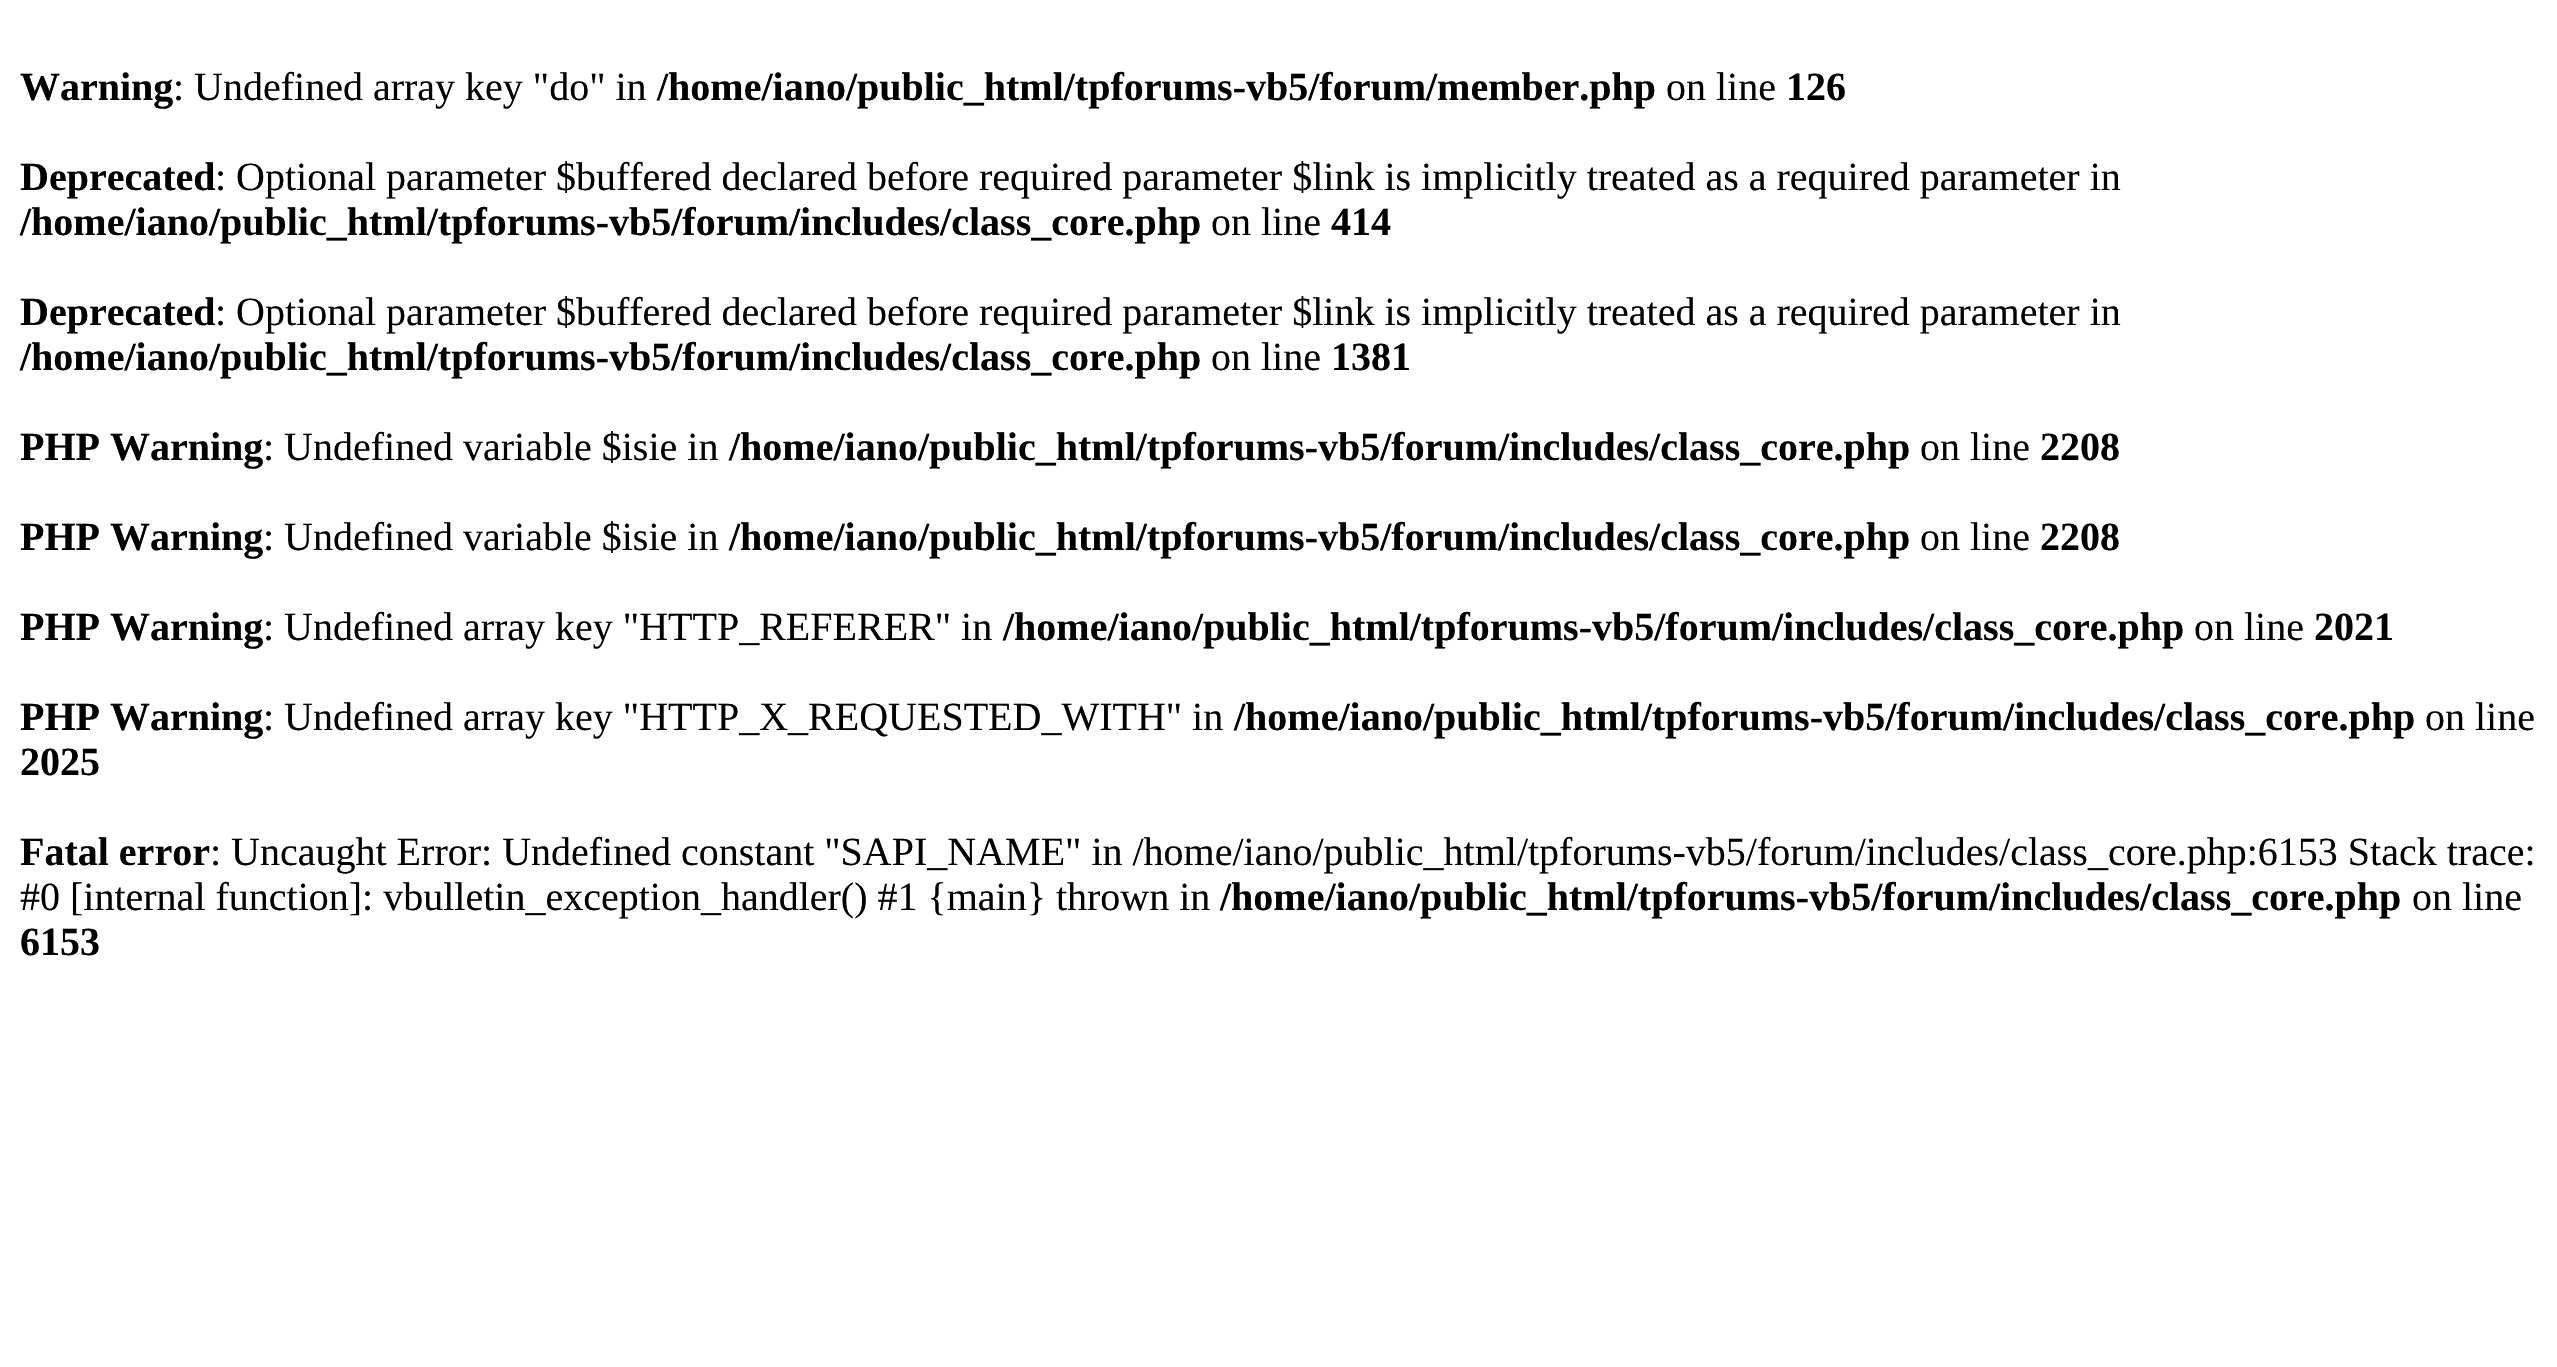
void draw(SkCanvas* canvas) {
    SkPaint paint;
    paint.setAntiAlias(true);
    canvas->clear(0xFFFFFFFF);
    SkFont font1(fontMgr->matchFamilyStyle("Liberation Serif", SkFontStyle::Bold()), 40);
    font1.setSubpixel(true);
    paint.setColor(0xFF000000);
    canvas->drawString("Warning", 20, 100, font1, paint);
    SkFont font2(fontMgr->matchFamilyStyle("Liberation Serif", SkFontStyle::Normal()), 40);
    font2.setSubpixel(true);
    canvas->drawString(": Undefined array key \"do\" in", 173, 100, font2, paint);
    canvas->drawString("/home/iano/public_html/tpforums-vb5/forum/member.php", 657, 100, font1, paint);
    canvas->drawString("on line", 1666, 100, font2, paint);
    canvas->drawString("126", 1786, 100, font1, paint);
    canvas->drawString("Deprecated", 20, 190, font1, paint);
    canvas->drawString(": Optional parameter $buffered declared before required parameter $link is implicitly treated as a required parameter in", 215, 190, font2, paint);
    canvas->drawString("/home/iano/public_html/tpforums-vb5/forum/includes/class_core.php", 20, 235, font1, paint);
    canvas->drawString("on line", 1211, 235, font2, paint);
    canvas->drawString("414", 1331, 235, font1, paint);
    canvas->drawString("Deprecated", 20, 325, font1, paint);
    canvas->drawString(": Optional parameter $buffered declared before required parameter $link is implicitly treated as a required parameter in", 215, 325, font2, paint);
    canvas->drawString("/home/iano/public_html/tpforums-vb5/forum/includes/class_core.php", 20, 370, font1, paint);
    canvas->drawString("on line", 1211, 370, font2, paint);
    canvas->drawString("1381", 1331, 370, font1, paint);
    canvas->drawString("PHP Warning", 20, 460, font1, paint);
    canvas->drawString(": Undefined variable $isie in", 263, 460, font2, paint);
    canvas->drawString("/home/iano/public_html/tpforums-vb5/forum/includes/class_core.php", 729, 460, font1, paint);
    canvas->drawString("on line", 1920, 460, font2, paint);
    canvas->drawString("2208", 2040, 460, font1, paint);
    canvas->drawString("PHP Warning", 20, 550, font1, paint);
    canvas->drawString(": Undefined variable $isie in", 263, 550, font2, paint);
    canvas->drawString("/home/iano/public_html/tpforums-vb5/forum/includes/class_core.php", 729, 550, font1, paint);
    canvas->drawString("on line", 1920, 550, font2, paint);
    canvas->drawString("2208", 2040, 550, font1, paint);
    canvas->drawString("PHP Warning", 20, 640, font1, paint);
    canvas->drawString(": Undefined array key \"HTTP_REFERER\" in", 263, 640, font2, paint);
    canvas->drawString("/home/iano/public_html/tpforums-vb5/forum/includes/class_core.php", 1003, 640, font1, paint);
    canvas->drawString("on line", 2194, 640, font2, paint);
    canvas->drawString("2021", 2314, 640, font1, paint);
    canvas->drawString("PHP Warning", 20, 730, font1, paint);
    canvas->drawString(": Undefined array key \"HTTP_X_REQUESTED_WITH\" in", 263, 730, font2, paint);
    canvas->drawString("/home/iano/public_html/tpforums-vb5/forum/includes/class_core.php", 1234, 730, font1, paint);
    canvas->drawString("on line", 2425, 730, font2, paint);
    canvas->drawString("2025", 20, 775, font1, paint);
    canvas->drawString("Fatal error", 20, 865, font1, paint);
    canvas->drawString(": Uncaught Error: Undefined constant \"SAPI_NAME\" in /home/iano/public_html/tpforums-vb5/forum/includes/class_core.php:6153 Stack trace:", 210, 865, font2, paint);
    canvas->drawString("#0 [internal function]: vbulletin_exception_handler() #1 {main} thrown in", 20, 910, font2, paint);
    canvas->drawString("/home/iano/public_html/tpforums-vb5/forum/includes/class_core.php", 1220, 910, font1, paint);
    canvas->drawString("on line", 2412, 910, font2, paint);
    canvas->drawString("6153", 20, 955, font1, paint);
}
